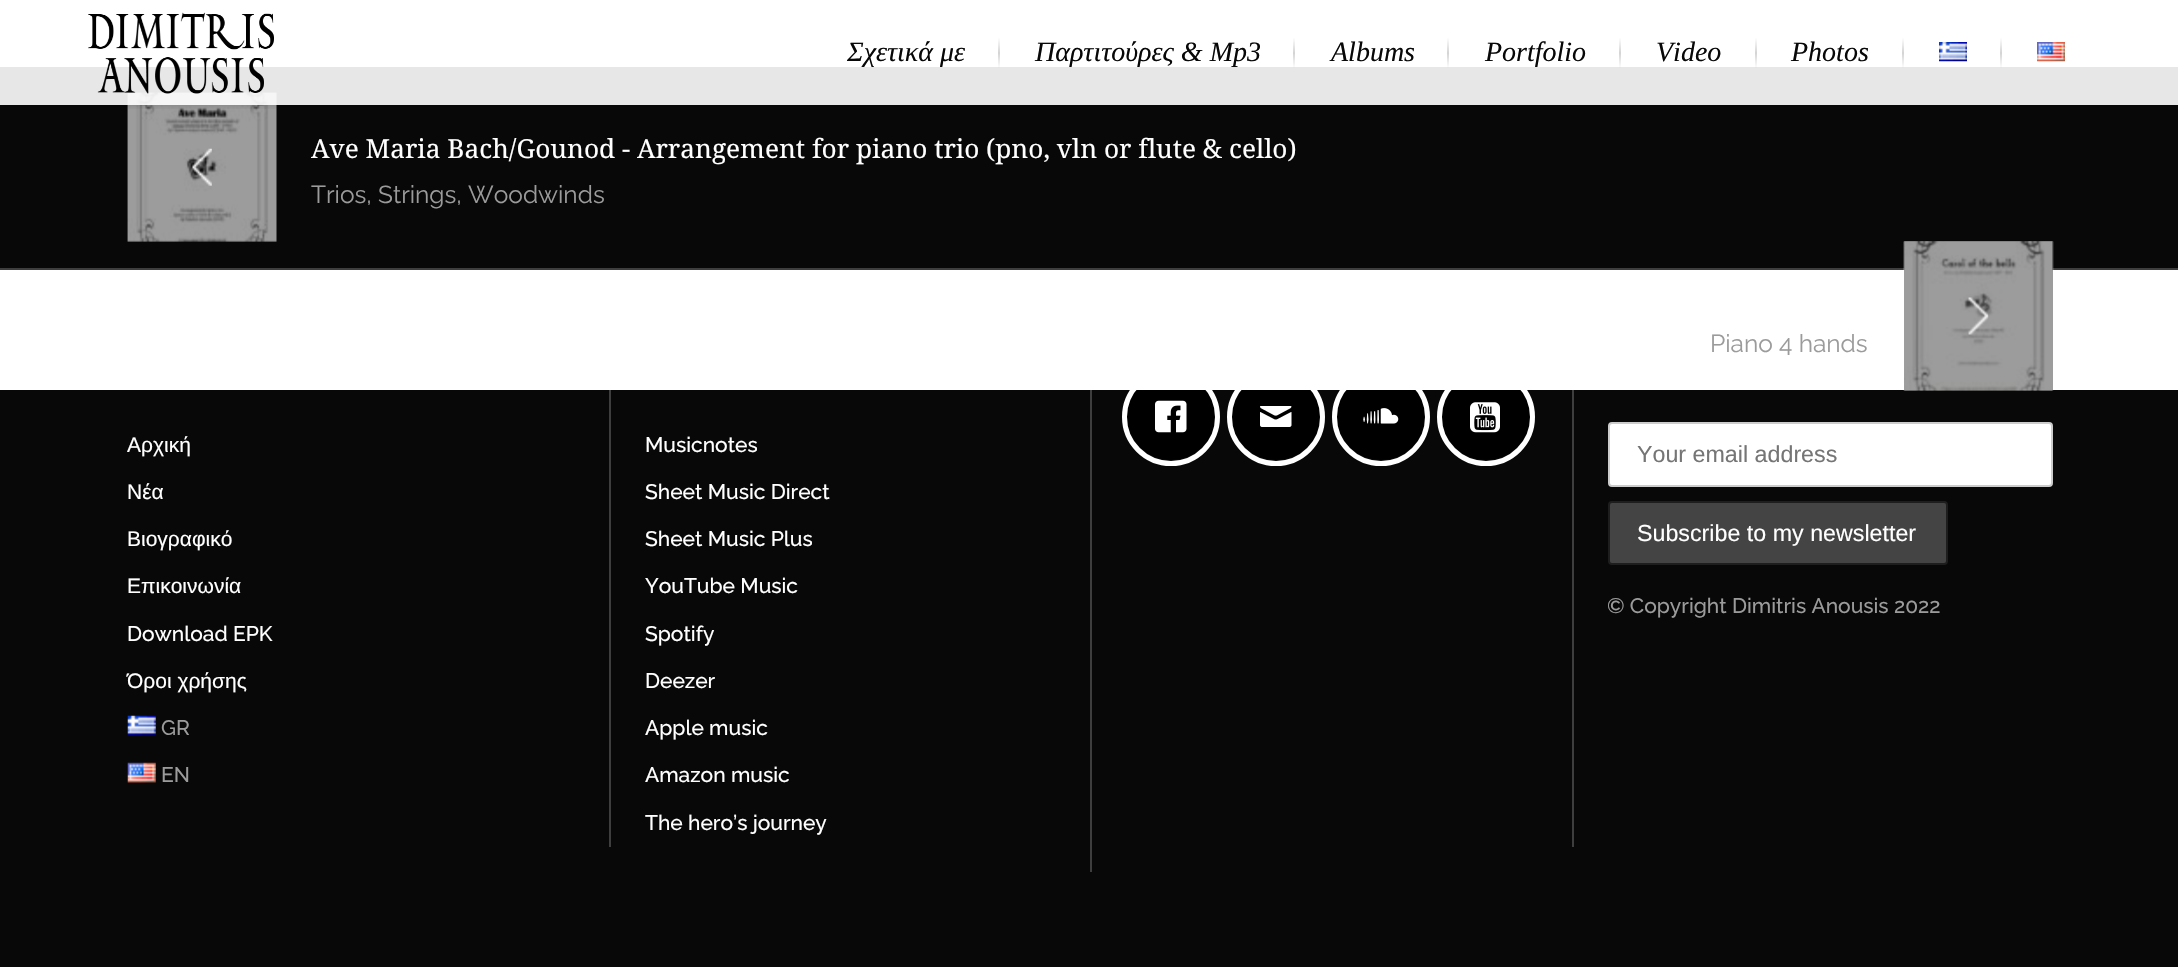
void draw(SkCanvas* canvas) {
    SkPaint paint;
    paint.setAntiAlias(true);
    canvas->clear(0xFF080808);
    paint.setColor(0xFF000000);
    canvas->drawRoundRect(SkRect::MakeXYWH(1127, 373, 88, 87), 43.5f, 43.5f, paint);
    canvas->drawImageRect(SkImages::DeferredFromEncodedData(SkData::MakeFromFileName("img10.png")), SkRect::MakeXYWH(1155, 400, 32, 33), SkSamplingOptions());
    paint.setStyle(SkPaint::kStroke_Style);
    paint.setStrokeWidth(5);
    paint.setColor(0xFFFFFFFF);
    canvas->drawCircle(1171, 417, 46.5f, paint);
    paint.setStyle(SkPaint::kFill_Style);
    paint.setColor(0xFF000000);
    canvas->drawRoundRect(SkRect::MakeXYWH(1232, 373, 88, 87), 43.5f, 43.5f, paint);
    canvas->drawImageRect(SkImages::DeferredFromEncodedData(SkData::MakeFromFileName("img11.png")), SkRect::MakeXYWH(1260, 406, 32, 21), SkSamplingOptions());
    paint.setStyle(SkPaint::kStroke_Style);
    paint.setColor(0xFFFFFFFF);
    canvas->drawCircle(1276, 417, 46.5f, paint);
    paint.setStyle(SkPaint::kFill_Style);
    paint.setColor(0xFF000000);
    canvas->drawRoundRect(SkRect::MakeXYWH(1337, 373, 88, 87), 43.5f, 43.5f, paint);
    canvas->drawImageRect(SkImages::DeferredFromEncodedData(SkData::MakeFromFileName("img12.png")), SkRect::MakeXYWH(1363, 408, 36, 16), SkSamplingOptions());
    paint.setStyle(SkPaint::kStroke_Style);
    paint.setColor(0xFFFFFFFF);
    canvas->drawCircle(1381, 417, 46.5f, paint);
    paint.setStyle(SkPaint::kFill_Style);
    paint.setColor(0xFF000000);
    canvas->drawRoundRect(SkRect::MakeXYWH(1442, 373, 88, 87), 43.5f, 43.5f, paint);
    canvas->drawImageRect(SkImages::DeferredFromEncodedData(SkData::MakeFromFileName("img13.png")), SkRect::MakeXYWH(1470, 402, 30, 31), SkSamplingOptions());
    paint.setStyle(SkPaint::kStroke_Style);
    paint.setColor(0xFFFFFFFF);
    canvas->drawCircle(1486, 417, 46.5f, paint);
    paint.setStyle(SkPaint::kFill_Style);
    canvas->drawRect(SkRect::MakeXYWH(0, 0, 2178, 390), paint);
    paint.setColor(0xFF080808);
    canvas->drawRect(SkRect::MakeXYWH(0, 67, 2178, 201), paint);
    canvas->drawImageRect(SkImages::DeferredFromEncodedData(SkData::MakeFromFileName("img4.png")), SkRect::MakeXYWH(127, 92, 150, 150), SkSamplingOptions());
    canvas->save();
    canvas->clipRect(SkRect::MakeXYWH(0, 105, 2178, 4));
    paint.setColor(0x1C000000);
    paint.setMaskFilter(SkMaskFilter::MakeBlur(kNormal_SkBlurStyle, 2.5f));
    canvas->drawRect(SkRect::MakeXYWH(0, 2, 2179, 105), paint);
    paint.setMaskFilter(nullptr);
    canvas->restore();
    paint.setColor(0xE6FFFFFF);
    canvas->drawRect(SkRect::MakeXYWH(0, 67, 2178, 38), paint);
    canvas->drawImageRect(SkImages::DeferredFromEncodedData(SkData::MakeFromFileName("img1.png")), SkRect::MakeXYWH(88, 12, 186, 82), SkSamplingOptions());
    SkFont font1(fontMgr->matchFamilyStyle("Liberation Serif", SkFontStyle::Italic()), 28);
    font1.setSubpixel(true);
    paint.setColor(0xFF080808);
    canvas->drawString("Σχετικά με", 847, 61, font1, paint);
    {
        const SkColor colors[] = {0x00B7B7B7, 0x99B7B7B7, 0x00B7B7B7};
        const float stops[] = {0.13f, 0.5f, 0.87f};
        const SkPoint ends[] = {{998, 32}, {998, 74}};
        paint.setShader(SkGradientShader::MakeLinear(ends, colors, stops, 3, SkTileMode::kClamp));
        paint.setAlpha(255);
    }
    canvas->drawRect(SkRect::MakeXYWH(998, 32, 2, 42), paint);
    paint.setShader(nullptr);
    paint.setColor(0xFF080808);
    canvas->drawString("Παρτιτούρες & Mp3", 1035, 61, font1, paint);
    {
        const SkColor colors[] = {0x00B7B7B7, 0x99B7B7B7, 0x00B7B7B7};
        const float stops[] = {0.13f, 0.5f, 0.87f};
        const SkPoint ends[] = {{1294, 32}, {1294, 74}};
        paint.setShader(SkGradientShader::MakeLinear(ends, colors, stops, 3, SkTileMode::kClamp));
        paint.setAlpha(255);
    }
    canvas->drawRect(SkRect::MakeXYWH(1293, 32, 2, 42), paint);
    paint.setShader(nullptr);
    paint.setColor(0xFF080808);
    canvas->drawString("Albums", 1331, 61, font1, paint);
    {
        const SkColor colors[] = {0x00B7B7B7, 0x99B7B7B7, 0x00B7B7B7};
        const float stops[] = {0.13f, 0.5f, 0.87f};
        const SkPoint ends[] = {{1448, 32}, {1448, 74}};
        paint.setShader(SkGradientShader::MakeLinear(ends, colors, stops, 3, SkTileMode::kClamp));
        paint.setAlpha(255);
    }
    canvas->drawRect(SkRect::MakeXYWH(1447, 32, 2, 42), paint);
    paint.setShader(nullptr);
    paint.setColor(0xFF080808);
    canvas->drawString("Portfolio", 1485, 61, font1, paint);
    {
        const SkColor colors[] = {0x00B7B7B7, 0x99B7B7B7, 0x00B7B7B7};
        const float stops[] = {0.13f, 0.5f, 0.87f};
        const SkPoint ends[] = {{1620, 32}, {1620, 74}};
        paint.setShader(SkGradientShader::MakeLinear(ends, colors, stops, 3, SkTileMode::kClamp));
        paint.setAlpha(255);
    }
    canvas->drawRect(SkRect::MakeXYWH(1619, 32, 2, 42), paint);
    paint.setShader(nullptr);
    paint.setColor(0xFF080808);
    canvas->drawString("Video", 1656, 61, font1, paint);
    {
        const SkColor colors[] = {0x00B7B7B7, 0x99B7B7B7, 0x00B7B7B7};
        const float stops[] = {0.13f, 0.5f, 0.87f};
        const SkPoint ends[] = {{1756, 32}, {1756, 74}};
        paint.setShader(SkGradientShader::MakeLinear(ends, colors, stops, 3, SkTileMode::kClamp));
        paint.setAlpha(255);
    }
    canvas->drawRect(SkRect::MakeXYWH(1755, 32, 2, 42), paint);
    paint.setShader(nullptr);
    paint.setColor(0xFF080808);
    canvas->drawString("Photos", 1791, 61, font1, paint);
    {
        const SkColor colors[] = {0x00B7B7B7, 0x99B7B7B7, 0x00B7B7B7};
        const float stops[] = {0.13f, 0.5f, 0.87f};
        const SkPoint ends[] = {{1903, 32}, {1903, 74}};
        paint.setShader(SkGradientShader::MakeLinear(ends, colors, stops, 3, SkTileMode::kClamp));
        paint.setAlpha(255);
    }
    canvas->drawRect(SkRect::MakeXYWH(1902, 32, 2, 42), paint);
    canvas->drawImageRect(SkImages::DeferredFromEncodedData(SkData::MakeFromFileName("img2.png")), SkRect::MakeXYWH(1939, 42, 28, 20), SkSamplingOptions());
    {
        const SkColor colors[] = {0x00B7B7B7, 0x99B7B7B7, 0x00B7B7B7};
        const float stops[] = {0.13f, 0.5f, 0.87f};
        const SkPoint ends[] = {{2001, 32}, {2001, 74}};
        paint.setShader(SkGradientShader::MakeLinear(ends, colors, stops, 3, SkTileMode::kClamp));
        paint.setAlpha(255);
    }
    canvas->drawRect(SkRect::MakeXYWH(2000, 32, 2, 42), paint);
    canvas->drawImageRect(SkImages::DeferredFromEncodedData(SkData::MakeFromFileName("img3.png")), SkRect::MakeXYWH(2037, 42, 28, 20), SkSamplingOptions());
    paint.setShader(nullptr);
    paint.setColor(0xFF9C9C9C);
    canvas->drawRect(SkRect::MakeXYWH(1904, 270, 149, 120), paint);
    paint.setColor(0xFF3E3E3E);
    canvas->drawRect(SkRect::MakeXYWH(0, 268, 2178, 2), paint);
    paint.setColor(0xFF282828);
    canvas->drawRect(SkRect::MakeXYWH(1904, 268, 149, 2), paint);
    canvas->drawImageRect(SkImages::DeferredFromEncodedData(SkData::MakeFromFileName("img5.png")), SkRect::MakeXYWH(192, 148, 20, 38), SkSamplingOptions());
    SkFont font2(fontMgr->matchFamilyStyle("Noto Serif", SkFontStyle::Normal()), 26.25f);
    font2.setSubpixel(true);
    paint.setColor(0xFFFFFFFF);
    canvas->drawString("Ave Maria Bach/Gounod - Arrangement for piano trio (pno, vln or flute & cello)", 311, 158, font2, paint);
    SkFont font3(fontMgr->matchFamilyStyle("Raleway", SkFontStyle::Normal()), 24.5f);
    font3.setSubpixel(true);
    paint.setColor(0xFF9B9B9B);
    canvas->drawString("Trios, Strings, Woodwinds", 311, 203, font3, paint);
    canvas->drawString("Piano 4 hands", 1710, 352, font3, paint);
    canvas->drawImageRect(SkImages::DeferredFromEncodedData(SkData::MakeFromFileName("img6.png")), SkRect::MakeXYWH(1903, 241, 151, 150), SkSamplingOptions());
    canvas->drawImageRect(SkImages::DeferredFromEncodedData(SkData::MakeFromFileName("img7.png")), SkRect::MakeXYWH(1968, 297, 21, 38), SkSamplingOptions());
    SkFont font4(fontMgr->matchFamilyStyle("Liberation Sans", SkFontStyle::Normal()), 21);
    font4.setSubpixel(true);
    paint.setColor(0xFFFFFFFF);
    canvas->drawString("Αρχική", 127, 452, font4, paint);
    canvas->drawString("Νέα", 127, 499, font4, paint);
    canvas->drawString("Βιογραφικό", 127, 546, font4, paint);
    canvas->drawString("Επικοινωνία", 127, 593, font4, paint);
    SkFont font5(fontMgr->matchFamilyStyle("Raleway", SkFontStyle(500, SkFontStyle::kNormal_Width, SkFontStyle::kUpright_Slant)), 21);
    font5.setSubpixel(true);
    canvas->drawString("Download EPK", 127, 641, font5, paint);
    canvas->drawString("Όροι χρήσης", 127, 688, font4, paint);
    canvas->drawImageRect(SkImages::DeferredFromEncodedData(SkData::MakeFromFileName("img8.png")), SkRect::MakeXYWH(127, 715, 29, 21), SkSamplingOptions());
    paint.setColor(0xFF9B9B9B);
    canvas->drawString("GR", 161, 735, font5, paint);
    canvas->drawImageRect(SkImages::DeferredFromEncodedData(SkData::MakeFromFileName("img9.png")), SkRect::MakeXYWH(127, 762, 29, 21), SkSamplingOptions());
    canvas->drawString("EN", 161, 782, font5, paint);
    paint.setColor(0xFF3E3E3E);
    canvas->drawRect(SkRect::MakeXYWH(609, 390, 2, 457), paint);
    paint.setColor(0xFFFFFFFF);
    canvas->drawString("Musicnotes", 645, 452, font5, paint);
    canvas->drawString("Sheet Music Direct", 645, 499, font5, paint);
    canvas->drawString("Sheet Music Plus", 645, 546, font5, paint);
    canvas->drawString("YouTube Music", 645, 593, font5, paint);
    canvas->drawString("Spotify", 645, 641, font5, paint);
    canvas->drawString("Deezer", 645, 688, font5, paint);
    canvas->drawString("Apple music", 645, 735, font5, paint);
    canvas->drawString("Amazon music", 645, 782, font5, paint);
    canvas->drawString("The hero’s journey", 645, 830, font5, paint);
    paint.setColor(0xFF3E3E3E);
    canvas->drawRect(SkRect::MakeXYWH(1090, 390, 2, 482), paint);
    canvas->drawRect(SkRect::MakeXYWH(1572, 390, 2, 457), paint);
    paint.setColor(0xFFFFFFFF);
    canvas->drawRoundRect(SkRect::MakeXYWH(1609, 423, 443, 63), 3, 3, paint);
    paint.setStyle(SkPaint::kStroke_Style);
    paint.setStrokeWidth(2);
    paint.setColor(0xFFCCCCCC);
    canvas->drawRoundRect(SkRect::MakeXYWH(1609, 423, 443, 63), 3, 3, paint);
    SkFont font6(fontMgr->matchFamilyStyle("Liberation Sans", SkFontStyle::Normal()), 23.25f);
    font6.setSubpixel(true);
    paint.setStyle(SkPaint::kFill_Style);
    paint.setColor(0xFF757575);
    canvas->drawString("Your email address", 1637, 462, font6, paint);
    paint.setColor(0xFF444444);
    canvas->drawRoundRect(SkRect::MakeXYWH(1609, 502, 338, 62), 3, 3, paint);
    paint.setStyle(SkPaint::kStroke_Style);
    paint.setColor(0xFF1E1E1E);
    canvas->drawRoundRect(SkRect::MakeXYWH(1609, 502, 338, 62), 3, 3, paint);
    paint.setStyle(SkPaint::kFill_Style);
    paint.setColor(0xFFFFFFFF);
    canvas->drawString("Subscribe to my newsletter", 1637, 541, font6, paint);
    paint.setColor(0xFF9B9B9B);
    canvas->drawString("© Copyright Dimitris Anousis 2022", 1607, 613, font5, paint);
}
